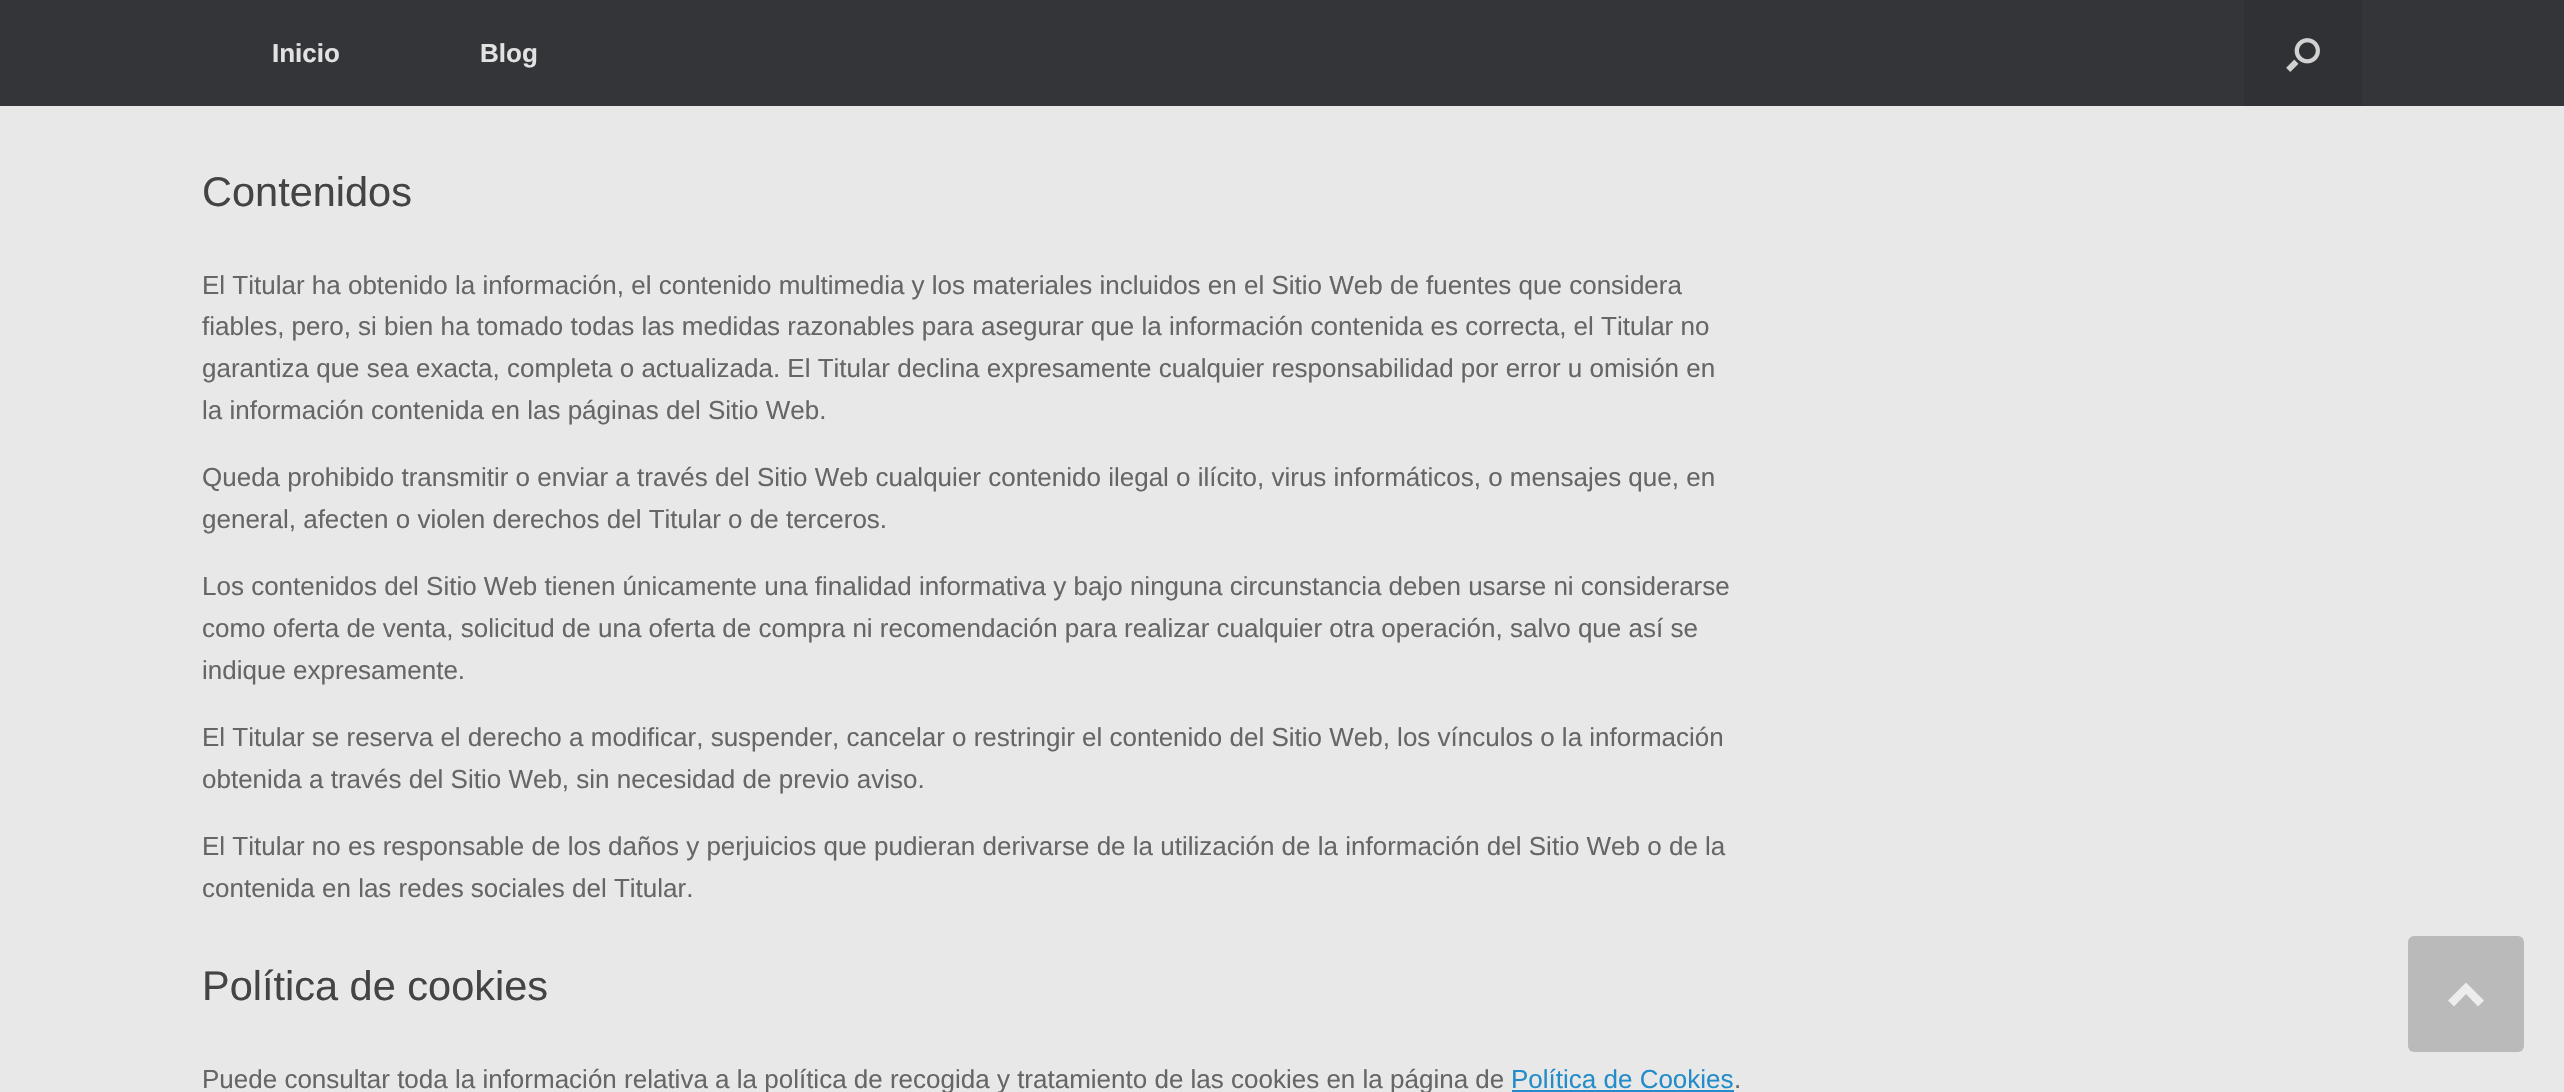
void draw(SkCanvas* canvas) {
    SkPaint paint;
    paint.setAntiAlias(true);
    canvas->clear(0xFFE8E8E8);
    paint.setColor(0xFF343538);
    canvas->drawRect(SkRect::MakeXYWH(0, 0, 2564, 106), paint);
    SkFont font1(fontMgr->matchFamilyStyle("Liberation Sans", SkFontStyle::Bold()), 26);
    font1.setSubpixel(true);
    paint.setColor(0xFFE2E2E2);
    canvas->drawString("Inicio", 272, 62, font1, paint);
    canvas->drawString("Blog", 480, 62, font1, paint);
    paint.setColor(0xFF303134);
    canvas->drawRect(SkRect::MakeXYWH(2244, 0, 118, 106), paint);
    canvas->drawImageRect(SkImages::DeferredFromEncodedData(SkData::MakeFromFileName("img1.png")), SkRect::MakeXYWH(2286, 38, 34, 34), SkSamplingOptions());
    SkFont font2(fontMgr->matchFamilyStyle("Liberation Sans", SkFontStyle::Normal()), 41.5f);
    font2.setSubpixel(true);
    paint.setColor(0xFF444444);
    canvas->drawString("Contenidos", 202, 206, font2, paint);
    SkFont font3(fontMgr->matchFamilyStyle("Liberation Sans", SkFontStyle::Normal()), 26);
    font3.setSubpixel(true);
    paint.setColor(0xFF666666);
    canvas->drawString("El Titular ha obtenido la información, el contenido multimedia y los materiales incluidos en el Sitio Web de fuentes que considera", 202, 294, font3, paint);
    canvas->drawString("fiables, pero, si bien ha tomado todas las medidas razonables para asegurar que la información contenida es correcta, el Titular no", 202, 335, font3, paint);
    canvas->drawString("garantiza que sea exacta, completa o actualizada. El Titular declina expresamente cualquier responsabilidad por error u omisión en", 202, 377, font3, paint);
    canvas->drawString("la información contenida en las páginas del Sitio Web.", 202, 419, font3, paint);
    canvas->drawString("Queda prohibido transmitir o enviar a través del Sitio Web cualquier contenido ilegal o ilícito, virus informáticos, o mensajes que, en", 202, 486, font3, paint);
    canvas->drawString("general, afecten o violen derechos del Titular o de terceros.", 202, 528, font3, paint);
    canvas->drawString("Los contenidos del Sitio Web tienen únicamente una finalidad informativa y bajo ninguna circunstancia deben usarse ni considerarse", 202, 595, font3, paint);
    canvas->drawString("como oferta de venta, solicitud de una oferta de compra ni recomendación para realizar cualquier otra operación, salvo que así se", 202, 637, font3, paint);
    canvas->drawString("indique expresamente.", 202, 679, font3, paint);
    canvas->drawString("El Titular se reserva el derecho a modificar, suspender, cancelar o restringir el contenido del Sitio Web, los vínculos o la información", 202, 746, font3, paint);
    canvas->drawString("obtenida a través del Sitio Web, sin necesidad de previo aviso.", 202, 788, font3, paint);
    canvas->drawString("El Titular no es responsable de los daños y perjuicios que pudieran derivarse de la utilización de la información del Sitio Web o de la", 202, 855, font3, paint);
    canvas->drawString("contenida en las redes sociales del Titular.", 202, 897, font3, paint);
    paint.setColor(0xFF444444);
    canvas->drawString("Política de cookies", 202, 1000, font2, paint);
    paint.setColor(0xFF666666);
    canvas->drawString("Puede consultar toda la información relativa a la política de recogida y tratamiento de las cookies en la página de", 202, 1088, font3, paint);
    paint.setColor(0xFF248CC8);
    canvas->drawString("Política de Cookies", 1511, 1088, font3, paint);
    canvas->drawRect(SkRect::MakeXYWH(1512, 1090, 222, 2), paint);
    paint.setColor(0xFF666666);
    canvas->drawString(".", 1734, 1088, font3, paint);
    paint.setColor(0xFFBABABA);
    canvas->drawRoundRect(SkRect::MakeXYWH(2408, 936, 116, 116), 6, 6, paint);
    paint.setColor(0xFFEDEDED);
    canvas->drawPath(SkPathBuilder().moveTo(2484, 1000.5f).lineTo(2466, 982.5f).lineTo(2448, 1000.5f).lineTo(2454, 1006.5f).lineTo(2466, 994).lineTo(2478, 1006.5f).close().detach(), paint);
}
